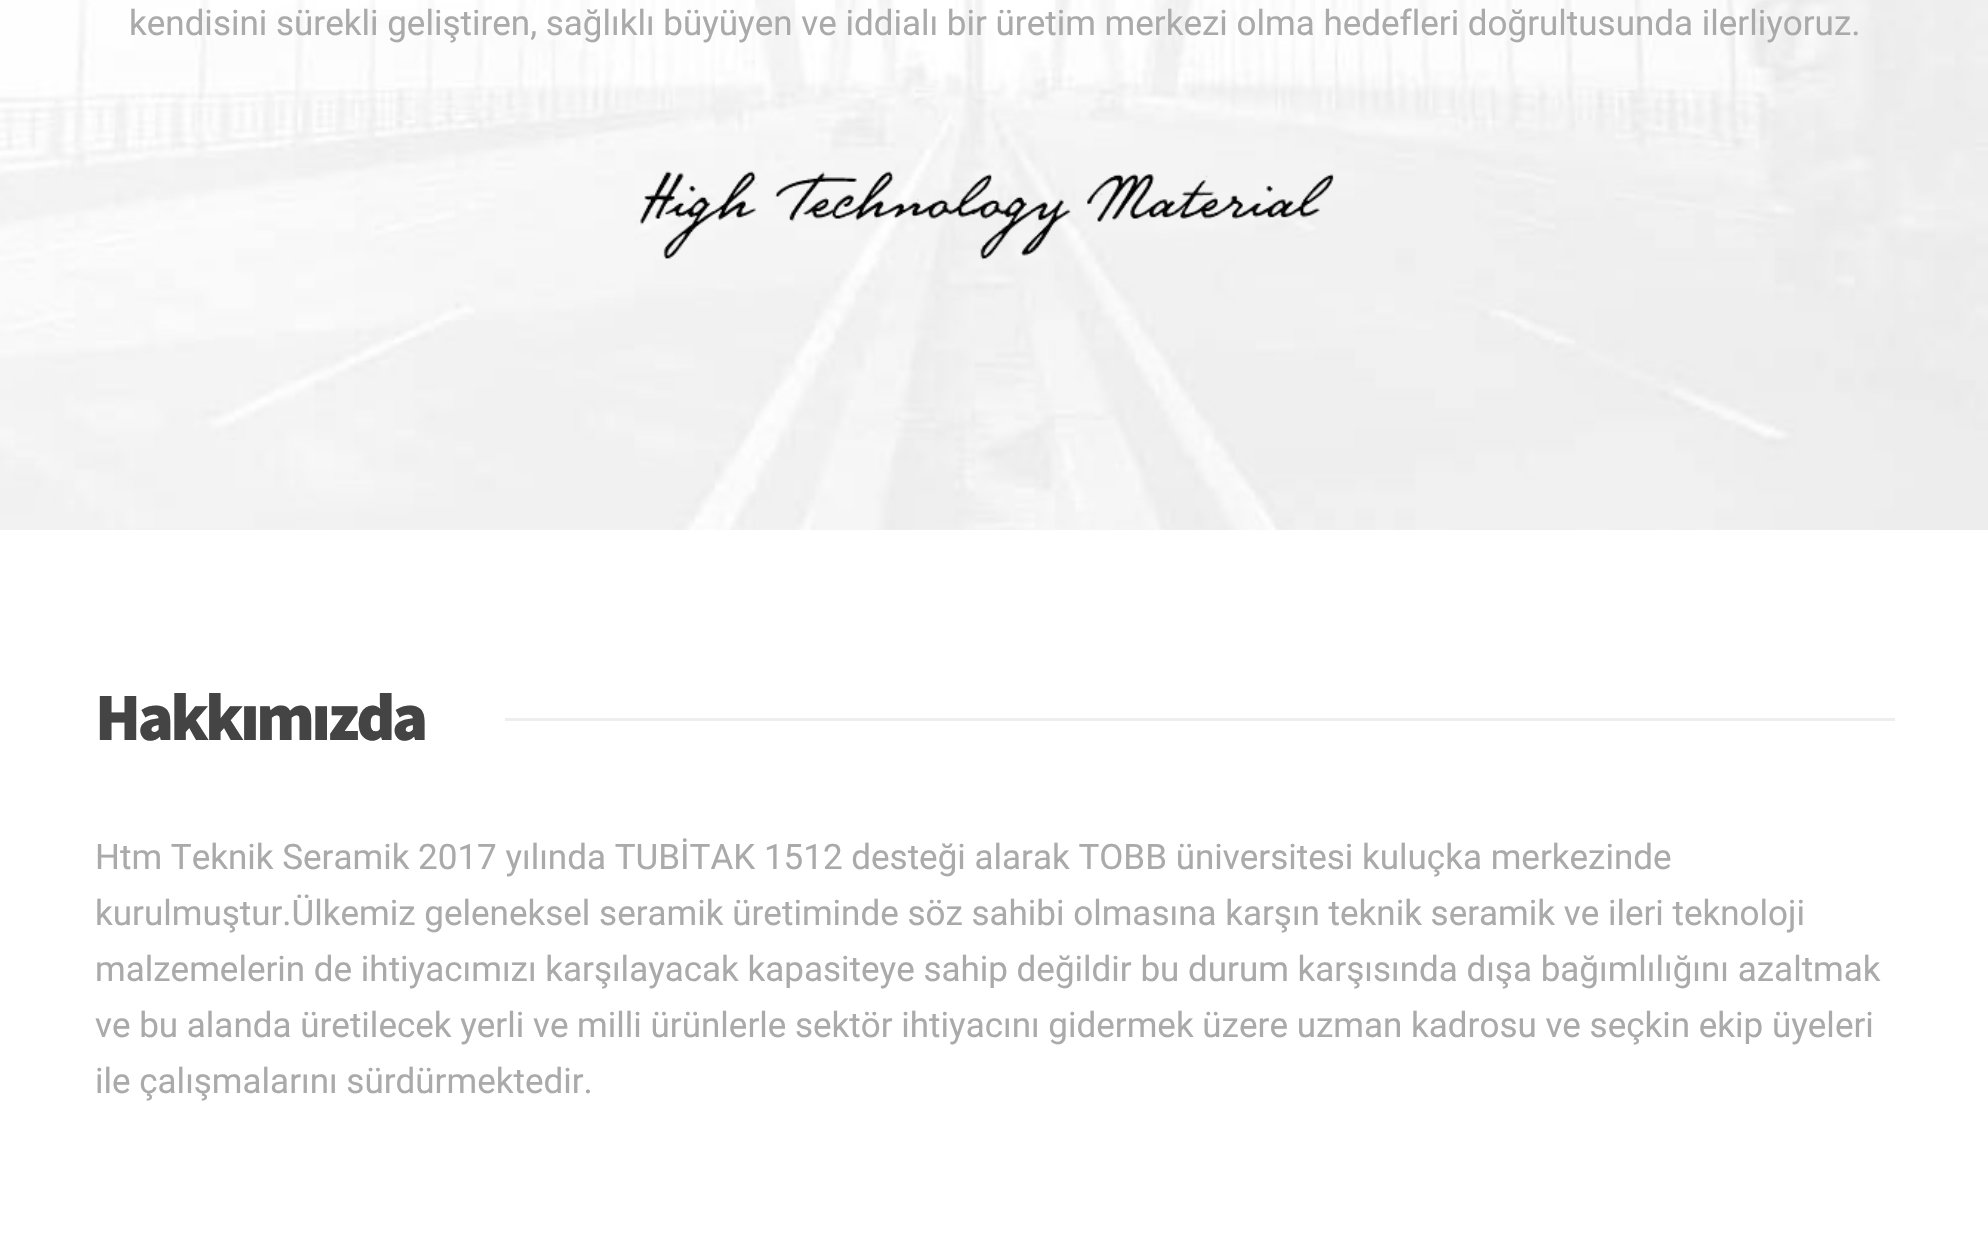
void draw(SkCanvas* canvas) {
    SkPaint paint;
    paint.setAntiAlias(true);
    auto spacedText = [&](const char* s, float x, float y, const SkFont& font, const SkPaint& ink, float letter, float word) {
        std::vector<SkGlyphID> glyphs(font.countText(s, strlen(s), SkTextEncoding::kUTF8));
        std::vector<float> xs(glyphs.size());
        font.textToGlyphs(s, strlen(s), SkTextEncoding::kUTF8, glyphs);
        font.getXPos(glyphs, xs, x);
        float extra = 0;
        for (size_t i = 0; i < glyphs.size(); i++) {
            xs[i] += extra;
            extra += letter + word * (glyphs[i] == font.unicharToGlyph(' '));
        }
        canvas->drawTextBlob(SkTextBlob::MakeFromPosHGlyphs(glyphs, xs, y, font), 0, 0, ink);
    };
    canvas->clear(0xFFFFFFFF);
    canvas->drawImageRect(SkImages::DeferredFromEncodedData(SkData::MakeFromFileName("img1.png")), SkRect::MakeXYWH(0, 0, 1988, 530), SkSamplingOptions());
    SkFont font1(fontMgr->matchFamilyStyle("Roboto", SkFontStyle::Normal()), 35);
    font1.setSubpixel(true);
    paint.setColor(0xFFAAAAAA);
    canvas->drawString("kendisini sürekli geliştiren, sağlıklı büyüyen ve iddialı bir üretim merkezi olma hedefleri doğrultusunda ilerliyoruz.", 129, 35, font1, paint);
    canvas->drawImageRect(SkImages::DeferredFromEncodedData(SkData::MakeFromFileName("img2.png")), SkRect::MakeXYWH(640, 171, 694, 89), SkSamplingOptions());
    SkFont font2(fontMgr->matchFamilyStyle("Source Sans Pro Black", SkFontStyle(900, SkFontStyle::kNormal_Width, SkFontStyle::kUpright_Slant)), 67.5f);
    font2.setSubpixel(true);
    paint.setColor(0xFF444444);
    spacedText("Hakkımızda", 95, 740, font2, paint, -3.4f, 0);
    paint.setColor(0xFFEEEEEE);
    canvas->drawRect(SkRect::MakeXYWH(505, 718, 1390, 3), paint);
    paint.setColor(0xFFAAAAAA);
    canvas->drawString("Htm Teknik Seramik 2017 yılında TUBİTAK 1512 desteği alarak TOBB üniversitesi kuluçka merkezinde", 95, 869, font1, paint);
    canvas->drawString("kurulmuştur.Ülkemiz geleneksel seramik üretiminde söz sahibi olmasına karşın teknik seramik ve ileri teknoloji", 95, 925, font1, paint);
    canvas->drawString("malzemelerin de ihtiyacımızı karşılayacak kapasiteye sahip değildir bu durum karşısında dışa bağımlılığını azaltmak", 95, 981, font1, paint);
    canvas->drawString("ve bu alanda üretilecek yerli ve milli ürünlerle sektör ihtiyacını gidermek üzere uzman kadrosu ve seçkin ekip üyeleri", 95, 1037, font1, paint);
    canvas->drawString("ile çalışmalarını sürdürmektedir.", 95, 1093, font1, paint);
}
